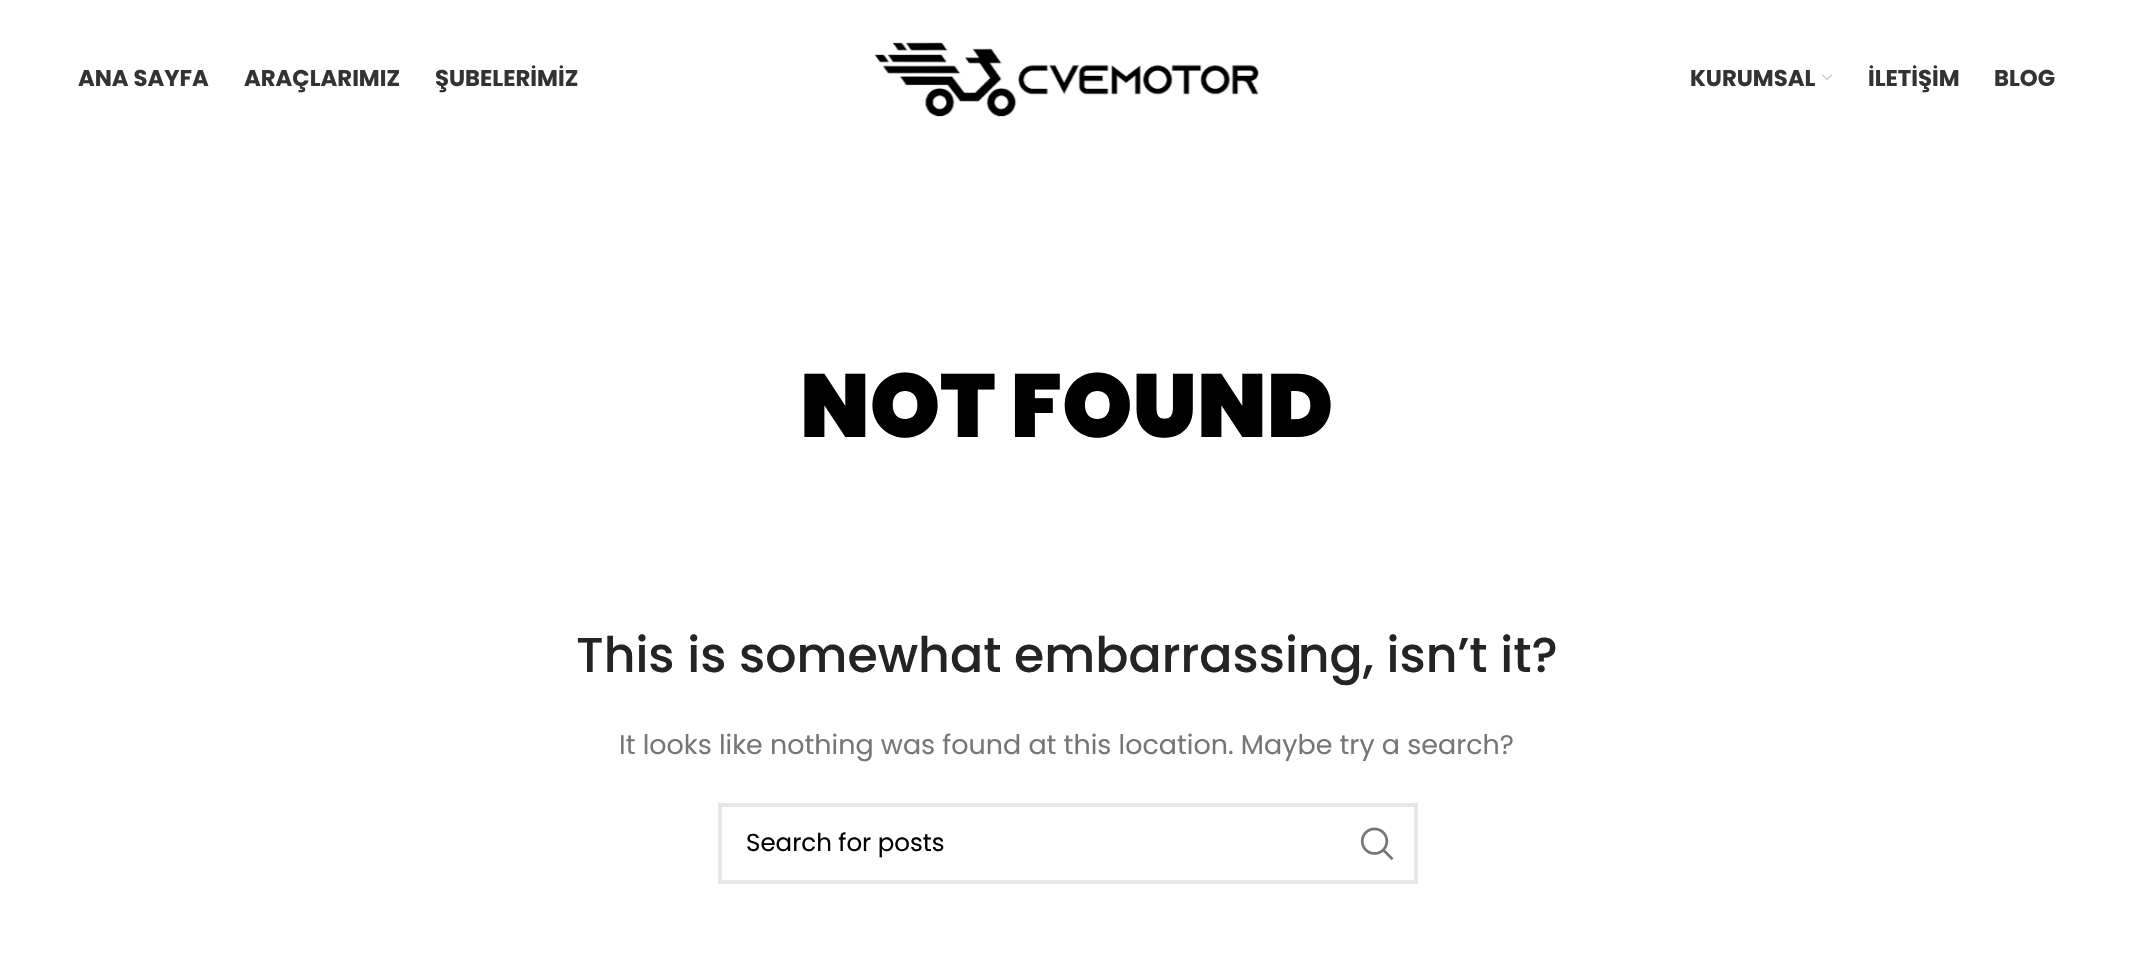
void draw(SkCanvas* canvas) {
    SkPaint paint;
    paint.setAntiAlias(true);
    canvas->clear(0xFFFFFFFF);
    SkFont font1(fontMgr->matchFamilyStyle("Poppins", SkFontStyle::Bold()), 22.75f);
    font1.setSubpixel(true);
    paint.setColor(0xFF333333);
    canvas->drawString("ANA SAYFA", 78, 86, font1, paint);
    canvas->drawString("ARAÇLARIMIZ", 244, 86, font1, paint);
    canvas->drawString("ŞUBELERİMİZ", 435, 86, font1, paint);
    canvas->drawImageRect(SkImages::DeferredFromEncodedData(SkData::MakeFromFileName("img1.png")), SkRect::MakeXYWH(874, 42, 385, 75), SkSamplingOptions());
    canvas->drawString("KURUMSAL", 1690, 86, font1, paint);
    canvas->drawImageRect(SkImages::DeferredFromEncodedData(SkData::MakeFromFileName("img2.png")), SkRect::MakeXYWH(1822, 74, 11, 6), SkSamplingOptions());
    canvas->drawString("İLETİŞİM", 1868, 86, font1, paint);
    canvas->drawString("BLOG", 1994, 86, font1, paint);
    SkFont font2(fontMgr->matchFamilyStyle("Poppins", SkFontStyle(900, SkFontStyle::kNormal_Width, SkFontStyle::kUpright_Slant)), 89.5f);
    font2.setSubpixel(true);
    paint.setColor(0xFF000000);
    canvas->drawString("NOT FOUND", 800, 437, font2, paint);
    SkFont font3(fontMgr->matchFamilyStyle("Poppins", SkFontStyle(500, SkFontStyle::kNormal_Width, SkFontStyle::kUpright_Slant)), 49);
    font3.setSubpixel(true);
    paint.setColor(0xFF242424);
    canvas->drawString("This is somewhat embarrassing, isn’t it?", 576, 672, font3, paint);
    SkFont font4(fontMgr->matchFamilyStyle("Poppins", SkFontStyle::Normal()), 26.95f);
    font4.setSubpixel(true);
    paint.setColor(0xFF767676);
    canvas->drawString("It looks like nothing was found at this location. Maybe try a search?", 619, 754, font4, paint);
    paint.setStyle(SkPaint::kStroke_Style);
    paint.setStrokeWidth(4);
    paint.setColor(0xFFE6E6E6);
    canvas->drawRect(SkRect::MakeXYWH(720, 805, 696, 77), paint);
    SkFont font5(fontMgr->matchFamilyStyle("Poppins", SkFontStyle::Normal()), 24.5f);
    font5.setSubpixel(true);
    paint.setStyle(SkPaint::kFill_Style);
    paint.setColor(0xFF000000);
    canvas->drawString("Search for posts", 746, 851, font5, paint);
    canvas->drawImageRect(SkImages::DeferredFromEncodedData(SkData::MakeFromFileName("img3.png")), SkRect::MakeXYWH(1360, 827, 34, 34), SkSamplingOptions());
}
